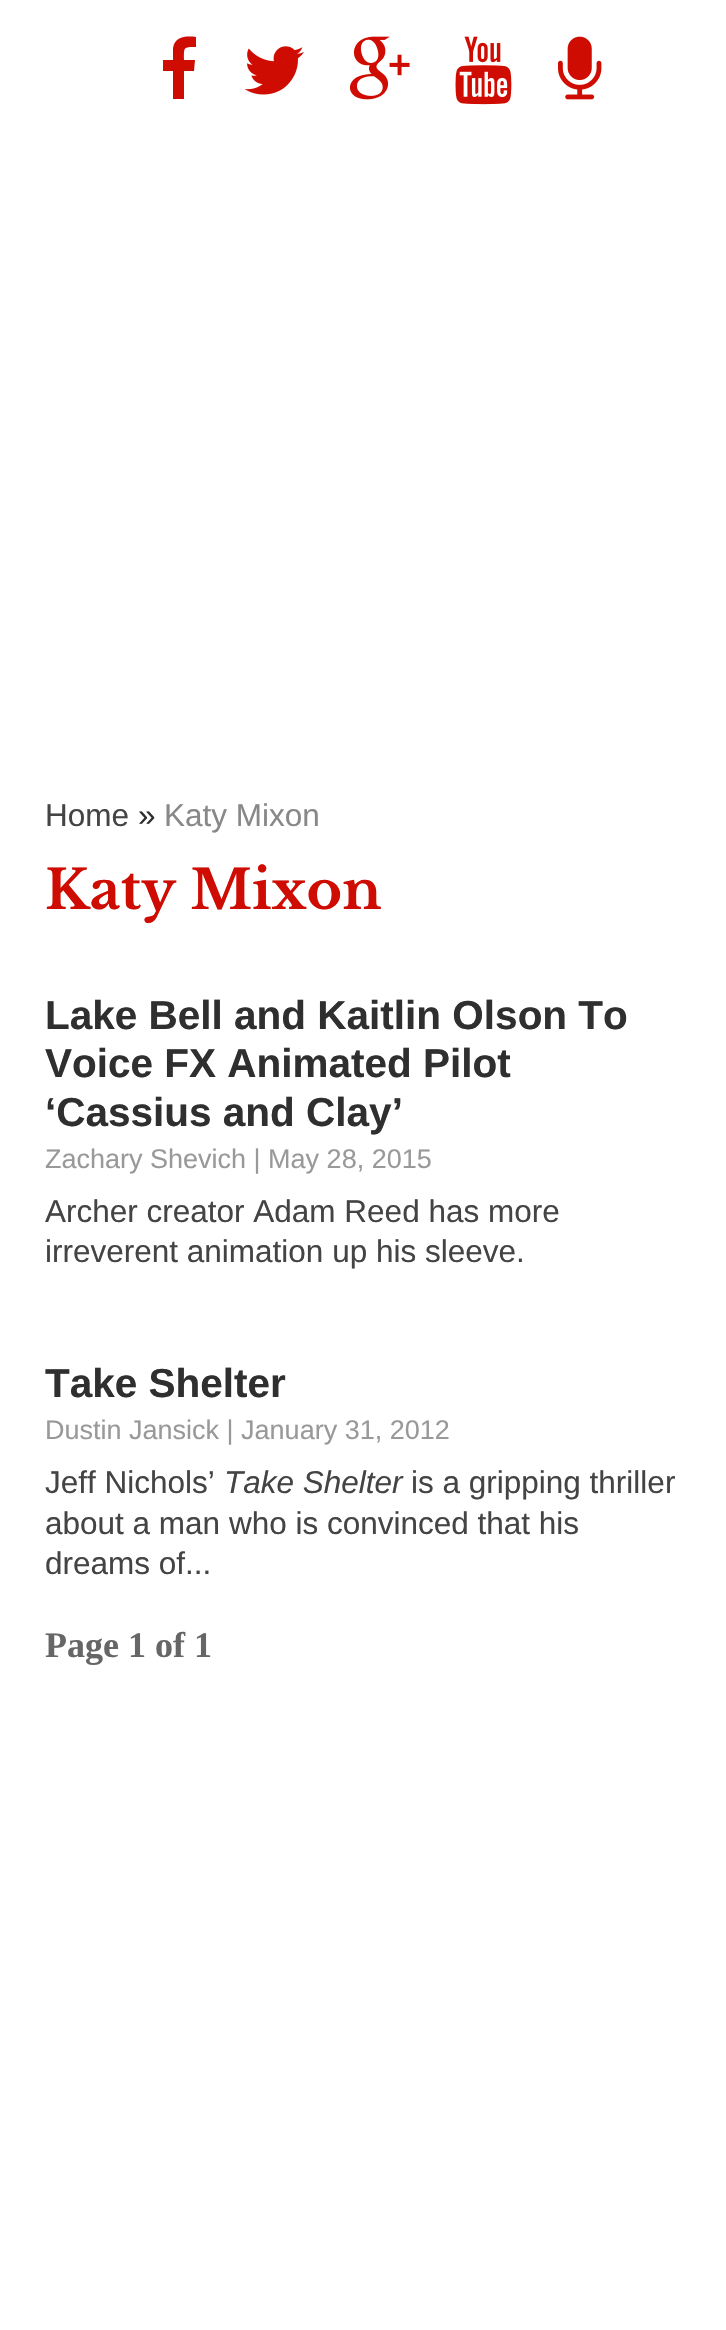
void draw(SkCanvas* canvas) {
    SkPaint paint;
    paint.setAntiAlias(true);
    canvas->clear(0xFFFFFFFF);
    paint.setColor(0xFFCE0C02);
    canvas->drawPath(SkPathBuilder().moveTo(196, 37).lineTo(196, 47).cubicTo(183, 47, 184, 47, 184, 60).lineTo(195, 60).lineTo(194, 71).lineTo(184, 71).lineTo(184, 99).lineTo(173, 99).lineTo(173, 71).lineTo(163, 71).lineTo(163, 60).lineTo(173, 60).lineTo(173, 48).cubicTo(175, 36, 186, 36, 196, 37).close().detach(), paint);
    canvas->drawImageRect(SkImages::DeferredFromEncodedData(SkData::MakeFromFileName("img1.png")), SkRect::MakeXYWH(244, 46, 60, 49), SkSamplingOptions());
    canvas->drawImageRect(SkImages::DeferredFromEncodedData(SkData::MakeFromFileName("img2.png")), SkRect::MakeXYWH(349, 36, 61, 64), SkSamplingOptions());
    canvas->drawImageRect(SkImages::DeferredFromEncodedData(SkData::MakeFromFileName("img3.png")), SkRect::MakeXYWH(455, 36, 57, 69), SkSamplingOptions());
    canvas->drawImageRect(SkImages::DeferredFromEncodedData(SkData::MakeFromFileName("img4.png")), SkRect::MakeXYWH(558, 36, 44, 64), SkSamplingOptions());
    SkFont font1(fontMgr->matchFamilyStyle("Liberation Sans", SkFontStyle::Normal()), 31.5f);
    font1.setSubpixel(true);
    paint.setColor(0xFF444444);
    canvas->drawString("Home", 45, 826, font1, paint);
    paint.setColor(0xFF2F2F2F);
    canvas->drawString("»", 138, 826, font1, paint);
    paint.setColor(0xFF888888);
    canvas->drawString("Katy Mixon", 164, 826, font1, paint);
    SkFont font2(fontMgr->matchFamilyStyle("Libre Baskerville", SkFontStyle::Bold()), 54);
    font2.setSubpixel(true);
    paint.setColor(0xFFCE0C02);
    canvas->drawString("Katy Mixon", 45, 909, font2, paint);
    SkFont font3(fontMgr->matchFamilyStyle("Liberation Sans", SkFontStyle::Bold()), 40.5f);
    font3.setSubpixel(true);
    paint.setColor(0xFF2F2F2F);
    canvas->drawString("Lake Bell and Kaitlin Olson To", 45, 1029, font3, paint);
    canvas->drawString("Voice FX Animated Pilot", 45, 1077, font3, paint);
    canvas->drawString("‘Cassius and Clay’", 45, 1126, font3, paint);
    SkFont font4(fontMgr->matchFamilyStyle("Liberation Sans", SkFontStyle::Normal()), 27);
    font4.setSubpixel(true);
    paint.setColor(0xFF999999);
    canvas->drawString("Zachary Shevich | May 28, 2015", 45, 1168, font4, paint);
    paint.setColor(0xFF444444);
    canvas->drawString("Archer creator Adam Reed has more", 45, 1222, font1, paint);
    canvas->drawString("irreverent animation up his sleeve.", 45, 1262, font1, paint);
    paint.setColor(0xFF2F2F2F);
    canvas->drawString("Take Shelter", 45, 1397, font3, paint);
    paint.setColor(0xFF999999);
    canvas->drawString("Dustin Jansick | January 31, 2012", 45, 1439, font4, paint);
    paint.setColor(0xFF444444);
    canvas->drawString("Jeff Nichols’", 45, 1493, font1, paint);
    SkFont font5(fontMgr->matchFamilyStyle("Liberation Sans", SkFontStyle::Italic()), 31.5f);
    font5.setSubpixel(true);
    canvas->drawString("Take Shelter", 224, 1493, font5, paint);
    canvas->drawString("is a gripping thriller", 411, 1493, font1, paint);
    canvas->drawString("about a man who is convinced that his", 45, 1534, font1, paint);
    canvas->drawString("dreams of...", 45, 1574, font1, paint);
    SkFont font6(fontMgr->matchFamilyStyle("Liberation Serif", SkFontStyle::Bold()), 36);
    font6.setSubpixel(true);
    paint.setColor(0xFF666666);
    canvas->drawString("Page 1 of 1", 45, 1657, font6, paint);
}
